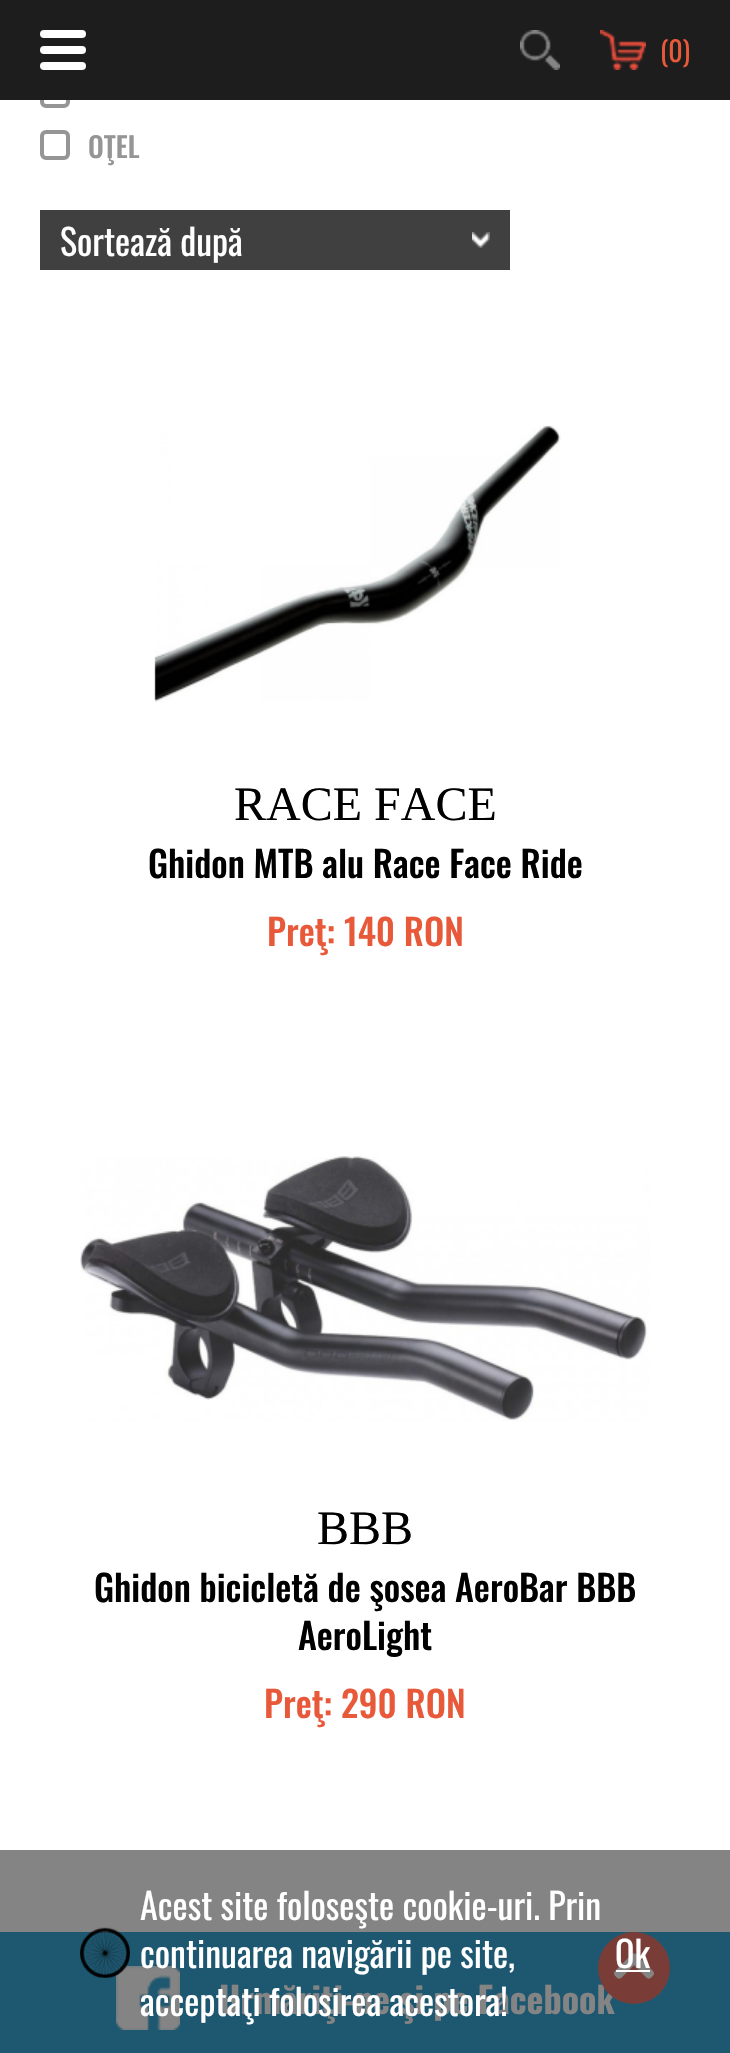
void draw(SkCanvas* canvas) {
    SkPaint paint;
    paint.setAntiAlias(true);
    canvas->clear(0xFFFFFFFF);
    paint.setColor(0xFF848484);
    canvas->drawRect(SkRect::MakeXYWH(0, 1850, 730, 82), paint);
    paint.setStyle(SkPaint::kStroke_Style);
    paint.setStrokeWidth(4);
    paint.setColor(0xFF959595);
    canvas->drawRoundRect(SkRect::MakeXYWH(42, 80, 26, 26), 4, 4, paint);
    paint.setStyle(SkPaint::kFill_Style);
    paint.setColor(0xFF1D1D1D);
    canvas->drawRect(SkRect::MakeXYWH(0, 0, 730, 100), paint);
    paint.setColor(0xFFFFFFFF);
    canvas->drawRoundRect(SkRect::MakeXYWH(40, 30, 46, 8), 4, 4, paint);
    canvas->drawRoundRect(SkRect::MakeXYWH(40, 46, 46, 8), 4, 4, paint);
    canvas->drawRoundRect(SkRect::MakeXYWH(40, 62, 46, 8), 4, 4, paint);
    canvas->drawImageRect(SkImages::DeferredFromEncodedData(SkData::MakeFromFileName("img1.png")), SkRect::MakeXYWH(520, 30, 40, 40), SkSamplingOptions());
    canvas->drawImageRect(SkImages::DeferredFromEncodedData(SkData::MakeFromFileName("img2.png")), SkRect::MakeXYWH(600, 30, 46, 40), SkSamplingOptions());
    SkFont font1(fontMgr->matchFamilyStyle("Oswald", SkFontStyle::Normal()), 28);
    font1.setSubpixel(true);
    paint.setColor(0xFFE8593A);
    canvas->drawString("(0)", 660, 62, font1, paint);
    paint.setStyle(SkPaint::kStroke_Style);
    paint.setColor(0xFF959595);
    canvas->drawRoundRect(SkRect::MakeXYWH(42, 132, 26, 26), 4, 4, paint);
    SkFont font2(fontMgr->matchFamilyStyle("Oswald", SkFontStyle(500, SkFontStyle::kNormal_Width, SkFontStyle::kUpright_Slant)), 28);
    font2.setSubpixel(true);
    paint.setStyle(SkPaint::kFill_Style);
    canvas->drawString("OŢEL", 88, 158, font2, paint);
    paint.setColor(0xFF404040);
    canvas->drawRect(SkRect::MakeXYWH(40, 210, 470, 60), paint);
    SkFont font3(fontMgr->matchFamilyStyle("Oswald", SkFontStyle::Normal()), 36);
    font3.setSubpixel(true);
    paint.setColor(0xFFFFFFFF);
    canvas->drawString("Sortează după", 60, 256, font3, paint);
    canvas->drawImageRect(SkImages::DeferredFromEncodedData(SkData::MakeFromFileName("img3.png")), SkRect::MakeXYWH(472, 232, 18, 16), SkSamplingOptions());
    canvas->drawImageRect(SkImages::DeferredFromEncodedData(SkData::MakeFromFileName("img4.png")), SkRect::MakeXYWH(154, 425, 407, 277), SkSamplingOptions());
    SkFont font4(fontMgr->matchFamilyStyle("Liberation Serif", SkFontStyle::Normal()), 48);
    font4.setSubpixel(true);
    paint.setColor(0xFF000000);
    canvas->drawString("RACE FACE", 234, 820, font4, paint);
    SkFont font5(fontMgr->matchFamilyStyle("Oswald", SkFontStyle(500, SkFontStyle::kNormal_Width, SkFontStyle::kUpright_Slant)), 36);
    font5.setSubpixel(true);
    canvas->drawString("Ghidon MTB alu Race Face Ride", 148, 878, font5, paint);
    paint.setColor(0xFFE8593A);
    canvas->drawString("Preţ: 140 RON", 267, 946, font5, paint);
    canvas->drawImageRect(SkImages::DeferredFromEncodedData(SkData::MakeFromFileName("img5.png")), SkRect::MakeXYWH(80, 1156, 569, 265), SkSamplingOptions());
    paint.setColor(0xFF000000);
    canvas->drawString("BBB", 317, 1544, font4, paint);
    canvas->drawString("Ghidon bicicletă de şosea AeroBar BBB", 94, 1602, font5, paint);
    canvas->drawString("AeroLight", 298, 1650, font5, paint);
    paint.setColor(0xFFE8593A);
    canvas->drawString("Preţ: 290 RON", 264, 1718, font5, paint);
    paint.setColor(0xFF1E5770);
    canvas->drawRect(SkRect::MakeXYWH(0, 1932, 730, 121), paint);
    canvas->drawImageRect(SkImages::DeferredFromEncodedData(SkData::MakeFromFileName("img7.png")), SkRect::MakeXYWH(116, 1966, 64, 64), SkSamplingOptions());
    canvas->drawImageRect(SkImages::DeferredFromEncodedData(SkData::MakeFromFileName("img6.png")), SkRect::MakeXYWH(80, 1927, 50, 51), SkSamplingOptions());
    paint.setColor(0xFFFFFFFF);
    canvas->drawString("Acest site foloseşte cookie-uri. Prin", 140, 1920, font3, paint);
    canvas->drawString("continuarea navigării pe site,", 140, 1968, font3, paint);
    SkFont font6(fontMgr->matchFamilyStyle("Oswald", SkFontStyle::Bold()), 36);
    font6.setSubpixel(true);
    paint.setColor(0xFF848484);
    canvas->drawString("Urmăriţi-ne şi pe Facebook", 219, 2014, font6, paint);
    paint.setColor(0xFFFFFFFF);
    canvas->drawString("acceptaţi folosirea acestora!", 140, 2016, font3, paint);
    paint.setColor(0xFF7A3C36);
    canvas->drawCircle(634, 1968, 36, paint);
    canvas->drawImageRect(SkImages::DeferredFromEncodedData(SkData::MakeFromFileName("img8.png")), SkRect::MakeXYWH(614, 1953, 40, 26), SkSamplingOptions());
    paint.setColor(0xFFFFFFFF);
    canvas->drawString("Ok", 615, 1968, font3, paint);
    canvas->drawRect(SkRect::MakeXYWH(616, 1970, 34, 2), paint);
}
